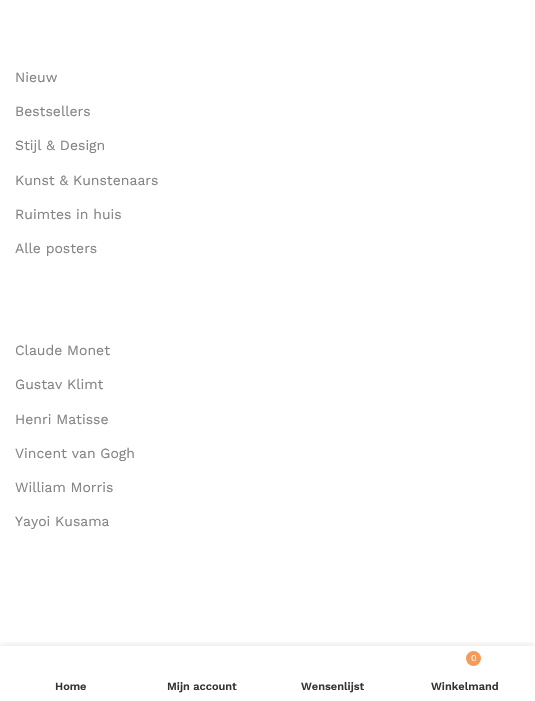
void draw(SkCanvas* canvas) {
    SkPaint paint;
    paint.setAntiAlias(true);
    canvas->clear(0xFFFFFFFF);
    SkFont font1(fontMgr->matchFamilyStyle("Work Sans", SkFontStyle::Normal()), 14);
    font1.setSubpixel(true);
    paint.setColor(0xFF838383);
    canvas->drawString("Nieuw", 15, 82, font1, paint);
    canvas->drawString("Bestsellers", 15, 116, font1, paint);
    canvas->drawString("Stijl & Design", 15, 150, font1, paint);
    canvas->drawString("Kunst & Kunstenaars", 15, 185, font1, paint);
    canvas->drawString("Ruimtes in huis", 15, 219, font1, paint);
    canvas->drawString("Alle posters", 15, 253, font1, paint);
    canvas->drawString("Claude Monet", 15, 355, font1, paint);
    canvas->drawString("Gustav Klimt", 15, 389, font1, paint);
    canvas->drawString("Henri Matisse", 15, 424, font1, paint);
    canvas->drawString("Vincent van Gogh", 15, 458, font1, paint);
    canvas->drawString("William Morris", 15, 492, font1, paint);
    canvas->drawString("Yayoi Kusama", 15, 526, font1, paint);
    canvas->save();
    canvas->clipRect(SkRect::MakeXYWH(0, 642, 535, 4));
    paint.setColor(0x1F000000);
    paint.setMaskFilter(SkMaskFilter::MakeBlur(kNormal_SkBlurStyle, 4.5f));
    canvas->drawRect(SkRect::MakeXYWH(0, 646, 535, 55), paint);
    paint.setMaskFilter(nullptr);
    canvas->restore();
    SkFont font2(fontMgr->matchFamilyStyle("Work Sans", SkFontStyle(600, SkFontStyle::kNormal_Width, SkFontStyle::kUpright_Slant)), 11);
    font2.setSubpixel(true);
    paint.setColor(0xFF333333);
    canvas->drawString("Home", 55, 690, font2, paint);
    canvas->drawString("Mijn account", 167, 690, font2, paint);
    canvas->drawString("Wensenlijst", 301, 690, font2, paint);
    paint.setColor(0xFFF59A57);
    canvas->drawCircle(473.5f, 658.5f, 7.5f, paint);
    SkFont font3(fontMgr->matchFamilyStyle("Work Sans", SkFontStyle::Normal()), 9);
    font3.setSubpixel(true);
    paint.setColor(0xFFFFFFFF);
    canvas->drawString("0", 471, 661, font3, paint);
    paint.setColor(0xFF333333);
    canvas->drawString("Winkelmand", 431, 690, font2, paint);
}
